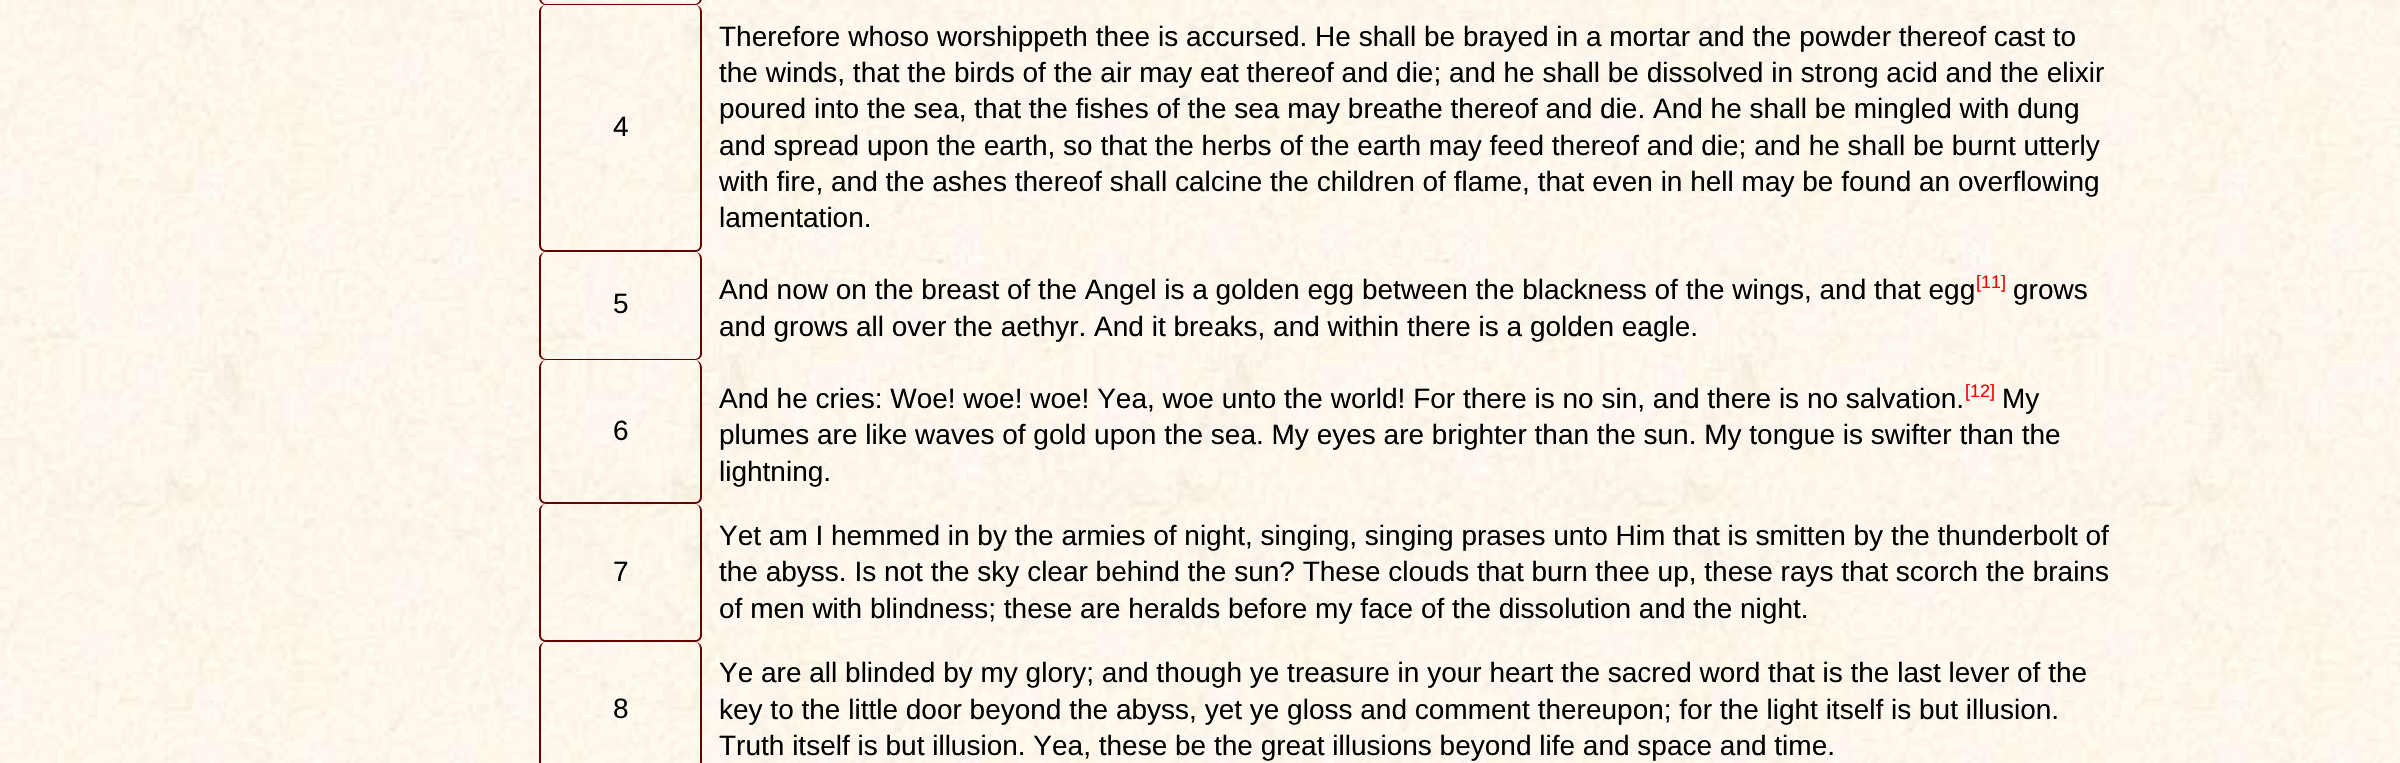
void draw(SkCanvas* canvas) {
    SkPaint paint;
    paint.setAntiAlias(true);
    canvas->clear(0xFFFFFFFF);
    canvas->drawImageRect(SkImages::DeferredFromEncodedData(SkData::MakeFromFileName("img1.png")), SkRect::MakeXYWH(0, 0, 2400, 763), SkSamplingOptions());
    paint.setColor(0xFF660000);
    canvas->drawPath(SkPathBuilder(SkPathFillType::kEvenOdd).moveTo(546, -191).lineTo(695, -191).cubicTo(699, -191, 702, -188, 702, -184).lineTo(702, -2).cubicTo(702, 2, 699, 5, 695, 5).lineTo(546, 5).cubicTo(542, 5, 539, 2, 539, -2).lineTo(539, -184).cubicTo(539, -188, 542, -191, 546, -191).close().moveTo(546, -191).lineTo(695, -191).cubicTo(698, -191, 700, -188, 700, -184).lineTo(700, -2).cubicTo(700, 1, 698, 4, 695, 4).lineTo(546, 4).cubicTo(543, 4, 541, 1, 541, -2).lineTo(541, -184).cubicTo(541, -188, 543, -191, 546, -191).close().detach(), paint);
    canvas->drawPath(SkPathBuilder(SkPathFillType::kEvenOdd).moveTo(546, 5).lineTo(695, 5).cubicTo(699, 5, 702, 8, 702, 12).lineTo(702, 245).cubicTo(702, 249, 699, 252, 695, 252).lineTo(546, 252).cubicTo(542, 252, 539, 249, 539, 245).lineTo(539, 12).cubicTo(539, 8, 542, 5, 546, 5).close().moveTo(546, 5).lineTo(695, 5).cubicTo(698, 5, 700, 8, 700, 12).lineTo(700, 245).cubicTo(700, 248, 698, 250, 695, 250).lineTo(546, 250).cubicTo(543, 250, 541, 248, 541, 245).lineTo(541, 12).cubicTo(541, 8, 543, 5, 546, 5).close().detach(), paint);
    SkFont font1(fontMgr->matchFamilyStyle("Liberation Sans", SkFontStyle::Normal()), 28);
    font1.setSubpixel(true);
    paint.setColor(0xFF000000);
    canvas->drawString("4", 613, 136, font1, paint);
    canvas->drawString("Therefore whoso worshippeth thee is accursed. He shall be brayed in a mortar and the powder thereof cast to", 719, 46, font1, paint);
    canvas->drawString("the winds, that the birds of the air may eat thereof and die; and he shall be dissolved in strong acid and the elixir", 719, 82, font1, paint);
    canvas->drawString("poured into the sea, that the fishes of the sea may breathe thereof and die. And he shall be mingled with dung", 719, 118, font1, paint);
    canvas->drawString("and spread upon the earth, so that the herbs of the earth may feed thereof and die; and he shall be burnt utterly", 719, 155, font1, paint);
    canvas->drawString("with fire, and the ashes thereof shall calcine the children of flame, that even in hell may be found an overflowing", 719, 191, font1, paint);
    canvas->drawString("lamentation.", 719, 227, font1, paint);
    paint.setColor(0xFF660000);
    canvas->drawPath(SkPathBuilder(SkPathFillType::kEvenOdd).moveTo(546, 252).lineTo(695, 252).cubicTo(699, 252, 702, 255, 702, 259).lineTo(702, 354).cubicTo(702, 357, 699, 360, 695, 360).lineTo(546, 360).cubicTo(542, 360, 539, 357, 539, 354).lineTo(539, 259).cubicTo(539, 255, 542, 252, 546, 252).close().moveTo(546, 252).lineTo(695, 252).cubicTo(698, 252, 700, 255, 700, 259).lineTo(700, 354).cubicTo(700, 356, 698, 359, 695, 359).lineTo(546, 359).cubicTo(543, 359, 541, 356, 541, 354).lineTo(541, 259).cubicTo(541, 255, 543, 252, 546, 252).close().detach(), paint);
    paint.setColor(0xFF000000);
    canvas->drawString("5", 613, 313, font1, paint);
    canvas->drawString("And now on the breast of the Angel is a golden egg between the blackness of the wings, and that egg", 719, 299, font1, paint);
    SkFont font2(fontMgr->matchFamilyStyle("Liberation Sans", SkFontStyle::Normal()), 18);
    font2.setSubpixel(true);
    paint.setColor(0xFFFF0000);
    canvas->drawString("[11]", 1976, 288, font2, paint);
    paint.setColor(0xFF000000);
    canvas->drawString("grows", 2013, 299, font1, paint);
    canvas->drawString("and grows all over the aethyr. And it breaks, and within there is a golden eagle.", 719, 336, font1, paint);
    paint.setColor(0xFF660000);
    canvas->drawPath(SkPathBuilder(SkPathFillType::kEvenOdd).moveTo(546, 360).lineTo(695, 360).cubicTo(699, 360, 702, 364, 702, 368).lineTo(702, 497).cubicTo(702, 501, 699, 504, 695, 504).lineTo(546, 504).cubicTo(542, 504, 539, 501, 539, 497).lineTo(539, 368).cubicTo(539, 364, 542, 360, 546, 360).close().moveTo(546, 360).lineTo(695, 360).cubicTo(698, 360, 700, 364, 700, 368).lineTo(700, 497).cubicTo(700, 500, 698, 502, 695, 502).lineTo(546, 502).cubicTo(543, 502, 541, 500, 541, 497).lineTo(541, 368).cubicTo(541, 364, 543, 360, 546, 360).close().detach(), paint);
    paint.setColor(0xFF000000);
    canvas->drawString("6", 613, 440, font1, paint);
    canvas->drawString("And he cries: Woe! woe! woe! Yea, woe unto the world! For there is no sin, and there is no salvation.", 719, 408, font1, paint);
    paint.setColor(0xFFFF0000);
    canvas->drawString("[12]", 1965, 397, font2, paint);
    paint.setColor(0xFF000000);
    canvas->drawString("My", 2002, 408, font1, paint);
    canvas->drawString("plumes are like waves of gold upon the sea. My eyes are brighter than the sun. My tongue is swifter than the", 719, 444, font1, paint);
    canvas->drawString("lightning.", 719, 481, font1, paint);
    paint.setColor(0xFF660000);
    canvas->drawPath(SkPathBuilder(SkPathFillType::kEvenOdd).moveTo(546, 504).lineTo(695, 504).cubicTo(699, 504, 702, 507, 702, 511).lineTo(702, 635).cubicTo(702, 639, 699, 642, 695, 642).lineTo(546, 642).cubicTo(542, 642, 539, 639, 539, 635).lineTo(539, 511).cubicTo(539, 507, 542, 504, 546, 504).close().moveTo(546, 504).lineTo(695, 504).cubicTo(698, 504, 700, 507, 700, 511).lineTo(700, 635).cubicTo(700, 638, 698, 640, 695, 640).lineTo(546, 640).cubicTo(543, 640, 541, 638, 541, 635).lineTo(541, 511).cubicTo(541, 507, 543, 504, 546, 504).close().detach(), paint);
    paint.setColor(0xFF000000);
    canvas->drawString("7", 613, 581, font1, paint);
    canvas->drawString("Yet am I hemmed in by the armies of night, singing, singing prases unto Him that is smitten by the thunderbolt of", 719, 545, font1, paint);
    canvas->drawString("the abyss. Is not the sky clear behind the sun? These clouds that burn thee up, these rays that scorch the brains", 719, 581, font1, paint);
    canvas->drawString("of men with blindness; these are heralds before my face of the dissolution and the night.", 719, 618, font1, paint);
    paint.setColor(0xFF660000);
    canvas->drawPath(SkPathBuilder(SkPathFillType::kEvenOdd).moveTo(546, 642).lineTo(695, 642).cubicTo(699, 642, 702, 645, 702, 649).lineTo(702, 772).cubicTo(702, 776, 699, 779, 695, 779).lineTo(546, 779).cubicTo(542, 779, 539, 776, 539, 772).lineTo(539, 649).cubicTo(539, 645, 542, 642, 546, 642).close().moveTo(546, 642).lineTo(695, 642).cubicTo(698, 642, 700, 645, 700, 649).lineTo(700, 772).cubicTo(700, 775, 698, 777, 695, 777).lineTo(546, 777).cubicTo(543, 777, 541, 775, 541, 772).lineTo(541, 649).cubicTo(541, 645, 543, 642, 546, 642).close().detach(), paint);
    paint.setColor(0xFF000000);
    canvas->drawString("8", 613, 718, font1, paint);
    canvas->drawString("Ye are all blinded by my glory; and though ye treasure in your heart the sacred word that is the last lever of the", 719, 682, font1, paint);
    canvas->drawString("key to the little door beyond the abyss, yet ye gloss and comment thereupon; for the light itself is but illusion.", 719, 719, font1, paint);
    canvas->drawString("Truth itself is but illusion. Yea, these be the great illusions beyond life and space and time.", 719, 755, font1, paint);
}
